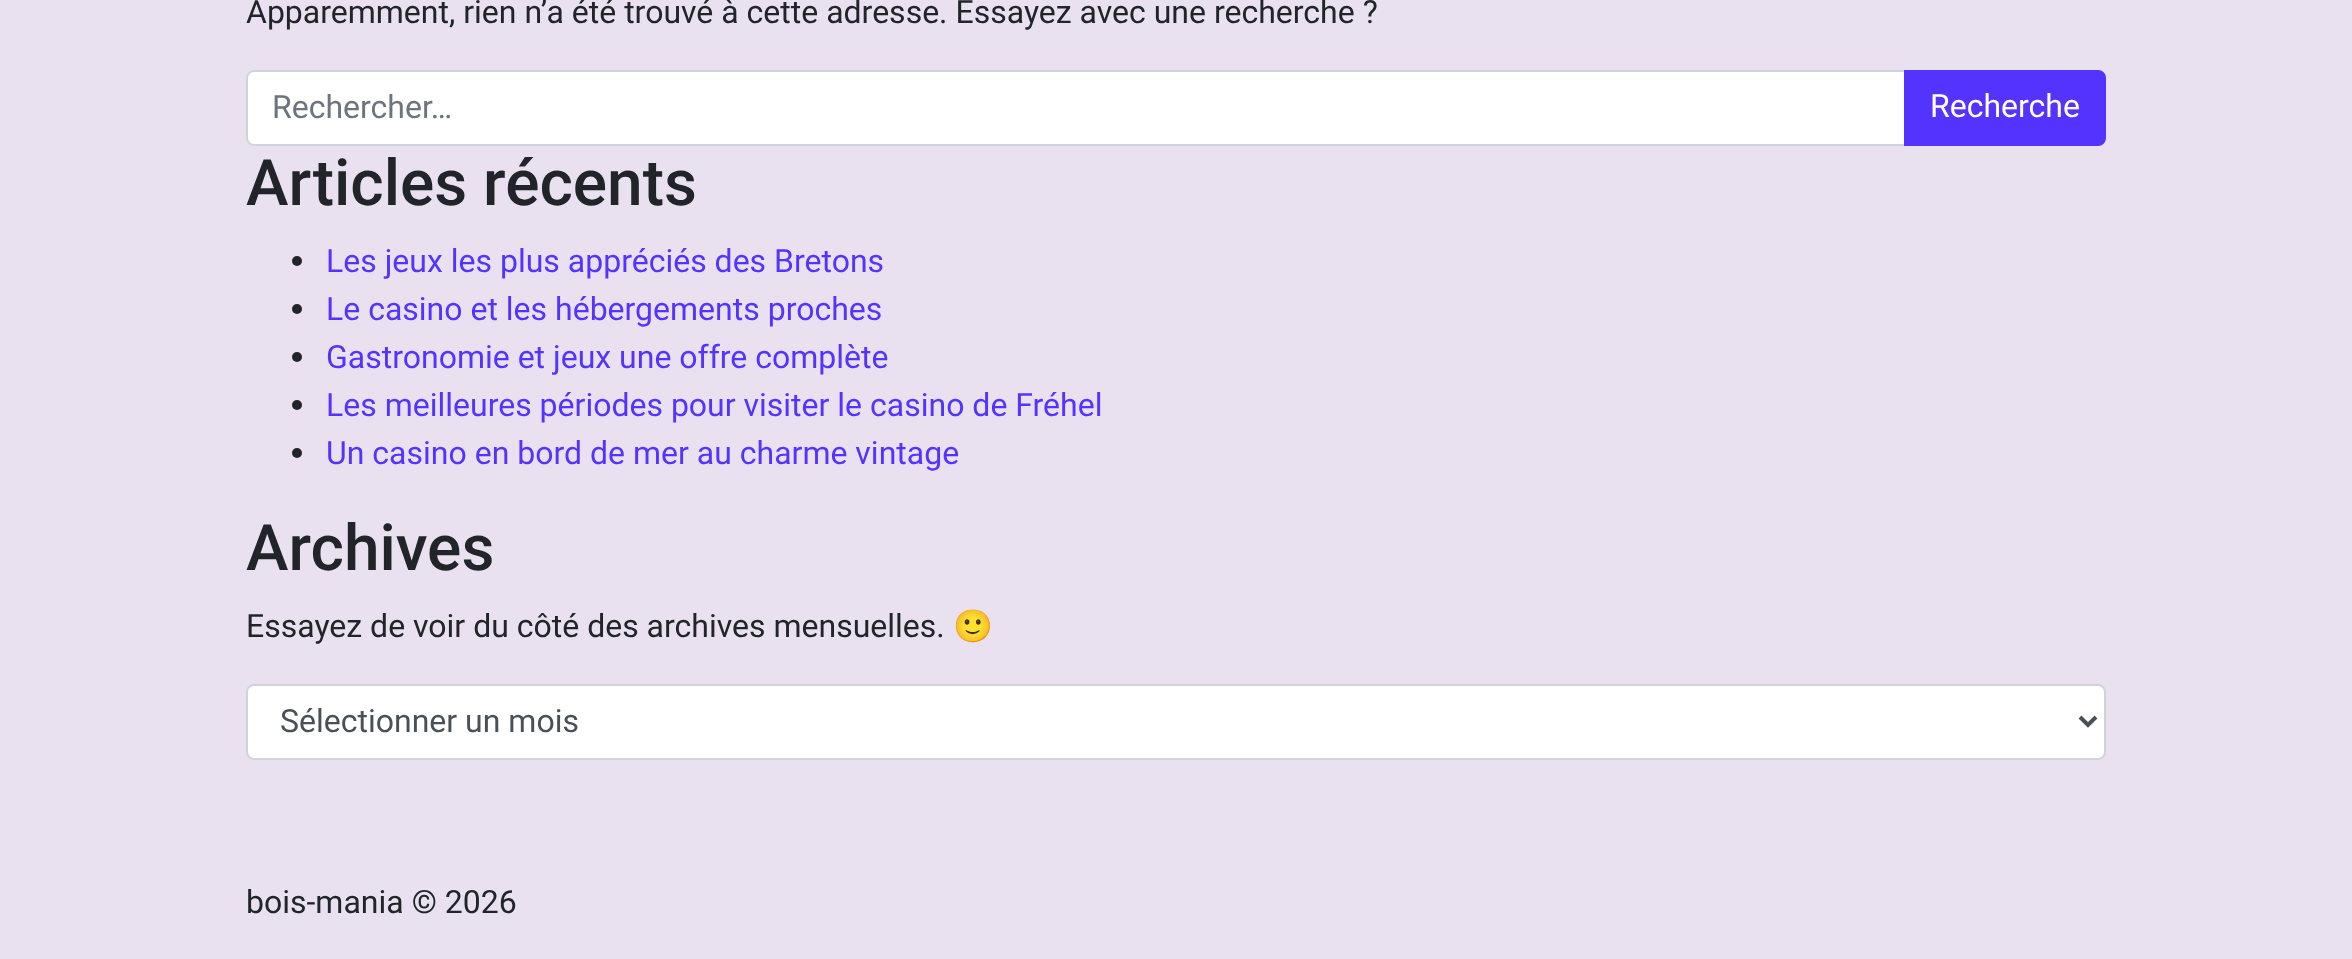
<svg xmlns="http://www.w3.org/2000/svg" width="2352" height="959">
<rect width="100%" height="100%" fill="#e9e1ef"/>
<text x="246" y="23" style="font-family:Roboto;font-size:32px;fill:#212529">Apparemment, rien n’a été trouvé à cette adresse. Essayez avec une recherche ?</text>
<path d="M254 71h1651v74h-1651c-4 0-7-3-7-7v-60c0-4 3-7 7-7z" fill="#fff" stroke="#ced4da" stroke-width="2"/>
<text x="272" y="118" style="font-family:Roboto;font-size:32px;fill:#6c757d">Rechercher…</text>
<path d="M1905 71h193c4 0 7 3 7 7v60c0 4-3 7-7 7h-193z" fill="#53f" stroke="#53f" stroke-width="2"/>
<text x="1930" y="117" style="font-family:Roboto;font-size:32px;fill:#fff">Recherche</text>
<text x="246" y="205" style="font-family:Roboto;font-size:64px;font-weight:500;fill:#212529">Articles récents</text>
<circle cx="297" cy="261" r="5" fill="#212529"/>
<text x="326" y="272" style="font-family:Roboto;font-size:32px;fill:#53f">Les jeux les plus appréciés des Bretons</text>
<circle cx="297" cy="309" r="5" fill="#212529"/>
<text x="326" y="320" style="font-family:Roboto;font-size:32px;fill:#53f">Le casino et les hébergements proches</text>
<circle cx="297" cy="357" r="5" fill="#212529"/>
<text x="326" y="368" style="font-family:Roboto;font-size:32px;fill:#53f">Gastronomie et jeux une offre complète</text>
<circle cx="297" cy="405" r="5" fill="#212529"/>
<text x="326" y="416" style="font-family:Roboto;font-size:32px;fill:#53f">Les meilleures périodes pour visiter le casino de Fréhel</text>
<circle cx="297" cy="453" r="5" fill="#212529"/>
<text x="326" y="464" style="font-family:Roboto;font-size:32px;fill:#53f">Un casino en bord de mer au charme vintage</text>
<text x="246" y="570" style="font-family:Roboto;font-size:64px;font-weight:500;fill:#212529">Archives</text>
<text x="246" y="637" style="font-family:Roboto;font-size:32px;fill:#212529">Essayez de voir du côté des archives mensuelles.</text>
<text x="953" y="637" style="font-family:Noto Color Emoji;font-size:32px;fill:#212529">🙂</text>
<rect x="247" y="685" width="1858" height="74" rx="7" fill="#fff" stroke="#ced4da" stroke-width="2"/>
<path d="M2080 717l8 8l8-8" fill="none" stroke="#495057" stroke-width="4"/>
<text x="280" y="732" style="font-family:Roboto;font-size:32px;fill:#495057">Sélectionner un mois</text>
<text x="246" y="913" style="font-family:Roboto;font-size:32px;fill:#212529">bois-mania © 2026</text>
</svg>
